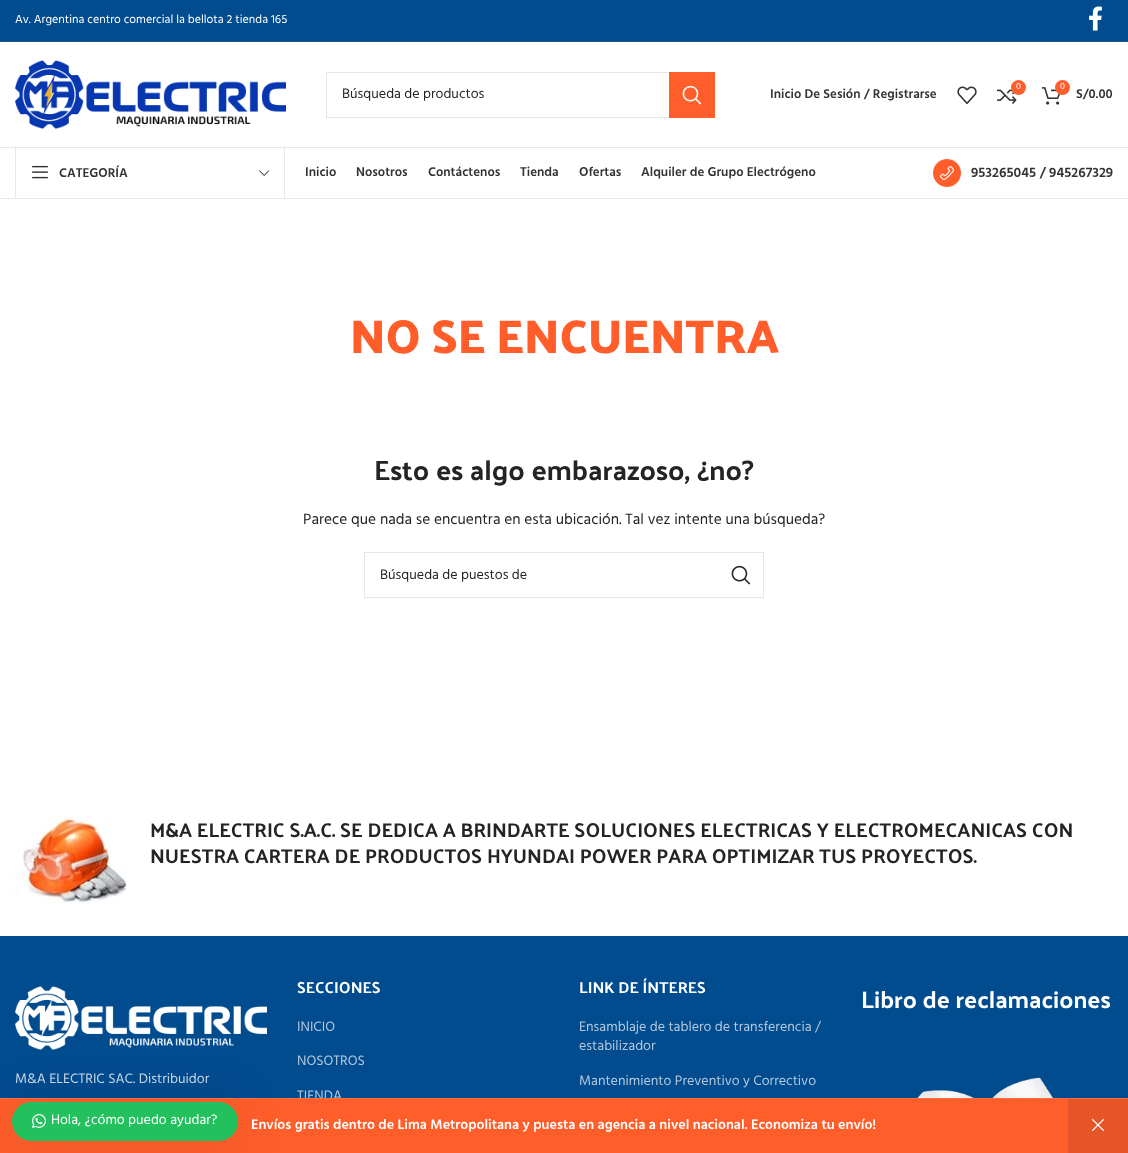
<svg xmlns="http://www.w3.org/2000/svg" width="1128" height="1153">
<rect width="100%" height="100%" fill="#fff"/>
<rect width="1128" height="41" fill="#014b8f"/>
<rect y="41" width="1128" height="1" fill="#1b568a"/>
<text x="15" y="23" style="font-family:Hind;font-size:12px;fill:#fff">Av. Argentina centro comercial la bellota 2 tienda 165</text>
<image x="1089" y="6" width="13" height="25" href="media/1.png"/>
<rect y="147" width="1128" height="1" fill="#e8e8e8"/>
<image x="15" y="60" width="271" height="69" href="media/2.png"/>
<rect x="326.5" y="72.5" width="388" height="45" fill="none" stroke="#e6e6e6"/>
<text x="342" y="98" style="font-family:Hind;font-size:14px;fill:#242424">Búsqueda de productos</text>
<rect x="669" y="72" width="46" height="46" fill="#ff5e2b"/>
<image x="682" y="85" width="20" height="20" href="media/3.png"/>
<text x="770" y="98" style="font-family:Hind;font-size:13px;font-weight:600;fill:#333">Inicio De Sesión / Registrarse</text>
<image x="957" y="86" width="20" height="18" href="media/4.png"/>
<image x="997" y="89" width="20" height="15" href="media/5.png"/>
<circle cx="1018.5" cy="87.5" r="7.5" fill="#ff5e2b"/>
<text x="1016" y="89" style="font-family:Hind;font-size:9px;fill:#fff">0</text>
<image x="1042" y="87" width="19" height="18" href="media/6.png"/>
<circle cx="1062.5" cy="87.5" r="7.5" fill="#ff5e2b"/>
<text x="1060" y="89" style="font-family:Hind;font-size:9px;fill:#fff">0</text>
<text x="1076" y="98" style="font-family:Hind;font-size:13px;font-weight:600;fill:#333">S/0.00</text>
<rect y="198" width="1128" height="1" fill="#e8e8e8"/>
<rect x="15.5" y="147.5" width="269" height="51" fill="none" stroke="#e8e8e8"/>
<image x="32" y="165" width="16" height="14" href="media/7.png"/>
<text x="59" y="177" style="font-family:Hind;font-size:13px;font-weight:600;fill:#333">CATEGORÍA</text>
<image x="259" y="170" width="11" height="6" href="media/8.png"/>
<text x="305" y="176" style="font-family:Hind;font-size:13px;font-weight:600;fill:#333">Inicio</text>
<text x="356" y="176" style="font-family:Hind;font-size:13px;font-weight:600;fill:#333">Nosotros</text>
<text x="428" y="176" style="font-family:Hind;font-size:13px;font-weight:600;fill:#333">Contáctenos</text>
<text x="520" y="176" style="font-family:Hind;font-size:13px;font-weight:600;fill:#333">Tienda</text>
<text x="579" y="176" style="font-family:Hind;font-size:13px;font-weight:600;fill:#333">Ofertas</text>
<text x="641" y="176" style="font-family:Hind;font-size:13px;font-weight:600;fill:#333">Alquiler de Grupo Electrógeno</text>
<image x="933" y="159" width="28" height="28" href="media/9.png"/>
<text x="971" y="177" style="font-family:Hind;font-size:14px;font-weight:600;fill:#333">953265045 / 945267329</text>
<text x="350" y="353" style="font-family:Palanquin Dark;font-size:47.4px;font-weight:600;fill:#ff5e2b">NO SE ENCUENTRA</text>
<text x="374" y="480" style="font-family:Palanquin Dark;font-size:28px;fill:#242424">Esto es algo embarazoso, ¿no?</text>
<text x="303" y="524" style="font-family:Hind;font-size:15.4px;fill:#242424">Parece que nada se encuentra en esta ubicación. Tal vez intente una búsqueda?</text>
<rect x="364.5" y="552.5" width="399" height="45" fill="none" stroke="#e6e6e6"/>
<text x="380" y="579" style="font-family:Hind;font-size:14px;fill:#242424">Búsqueda de puestos de</text>
<image x="731" y="565" width="20" height="20" href="media/10.png"/>
<image x="15" y="816" width="112" height="88" href="media/11.png"/>
<text x="150" y="837" style="font-family:Palanquin Dark;font-size:20px;fill:#242424">M&amp;A ELECTRIC S.A.C. SE DEDICA A BRINDARTE SOLUCIONES ELECTRICAS Y ELECTROMECANICAS CON</text>
<text x="150" y="863" style="font-family:Palanquin Dark;font-size:20px;fill:#242424">NUESTRA CARTERA DE PRODUCTOS HYUNDAI POWER PARA OPTIMIZAR TUS PROYECTOS.</text>
<rect y="936" width="1128" height="162" fill="#014b8f"/>
<text x="297" y="993" style="font-family:Palanquin Dark;font-size:16px;fill:#fff">SECCIONES</text>
<text x="297" y="1031" style="font-family:Hind;font-size:14px;fill:#b3c9dd">INICIO</text>
<text x="297" y="1065" style="font-family:Hind;font-size:14px;fill:#b3c9dd">NOSOTROS</text>
<text x="297" y="1100" style="font-family:Hind;font-size:14px;fill:#b3c9dd">TIENDA</text>
<text x="579" y="993" style="font-family:Palanquin Dark;font-size:16px;fill:#fff">LINK DE ÍNTERES</text>
<text x="579" y="1031" style="font-family:Hind;font-size:14px;fill:#b3c9dd">Ensamblaje de tablero de transferencia /</text>
<text x="579" y="1050" style="font-family:Hind;font-size:14px;fill:#b3c9dd">estabilizador</text>
<text x="579" y="1085" style="font-family:Hind;font-size:14px;fill:#b3c9dd">Mantenimiento Preventivo y Correctivo</text>
<text x="861" y="1008" style="font-family:Palanquin Dark;font-size:24px;fill:#fff">Libro de reclamaciones</text>
<image x="917" y="1077" width="136" height="21" href="media/12.png"/>
<image x="15" y="986" width="252" height="64" href="media/13.png"/>
<text x="15" y="1083" style="font-family:Hind;font-size:14px;fill:#ccdbe9">M&amp;A ELECTRIC SAC. Distribuidor</text>
<rect y="1099" width="1068" height="54" fill="#ff5e2b"/>
<rect y="1098" width="1128" height="1" fill="#ff6e40"/>
<rect x="12" y="1102" width="226" height="39" rx="19.5" fill="#0000001a" filter="blur(25px)"/>
<rect x="12" y="1102" width="226" height="39" rx="19.5" fill="#22c15e"/>
<image x="32" y="1114" width="14" height="14" href="media/14.png"/>
<text x="51" y="1124" style="font-family:Hind;font-size:14px;fill:#fff">Hola, ¿cómo puedo ayudar?</text>
<text x="251" y="1129" style="font-family:Hind;font-size:14px;font-weight:600;fill:#fff">Envíos gratis dentro de Lima Metropolitana y puesta en agencia a nivel nacional. Economiza tu envío!</text>
<rect x="1068" y="1099" width="60" height="54" fill="#e65527"/>
<image x="1091" y="1118" width="14" height="14" href="media/15.png"/>
</svg>
